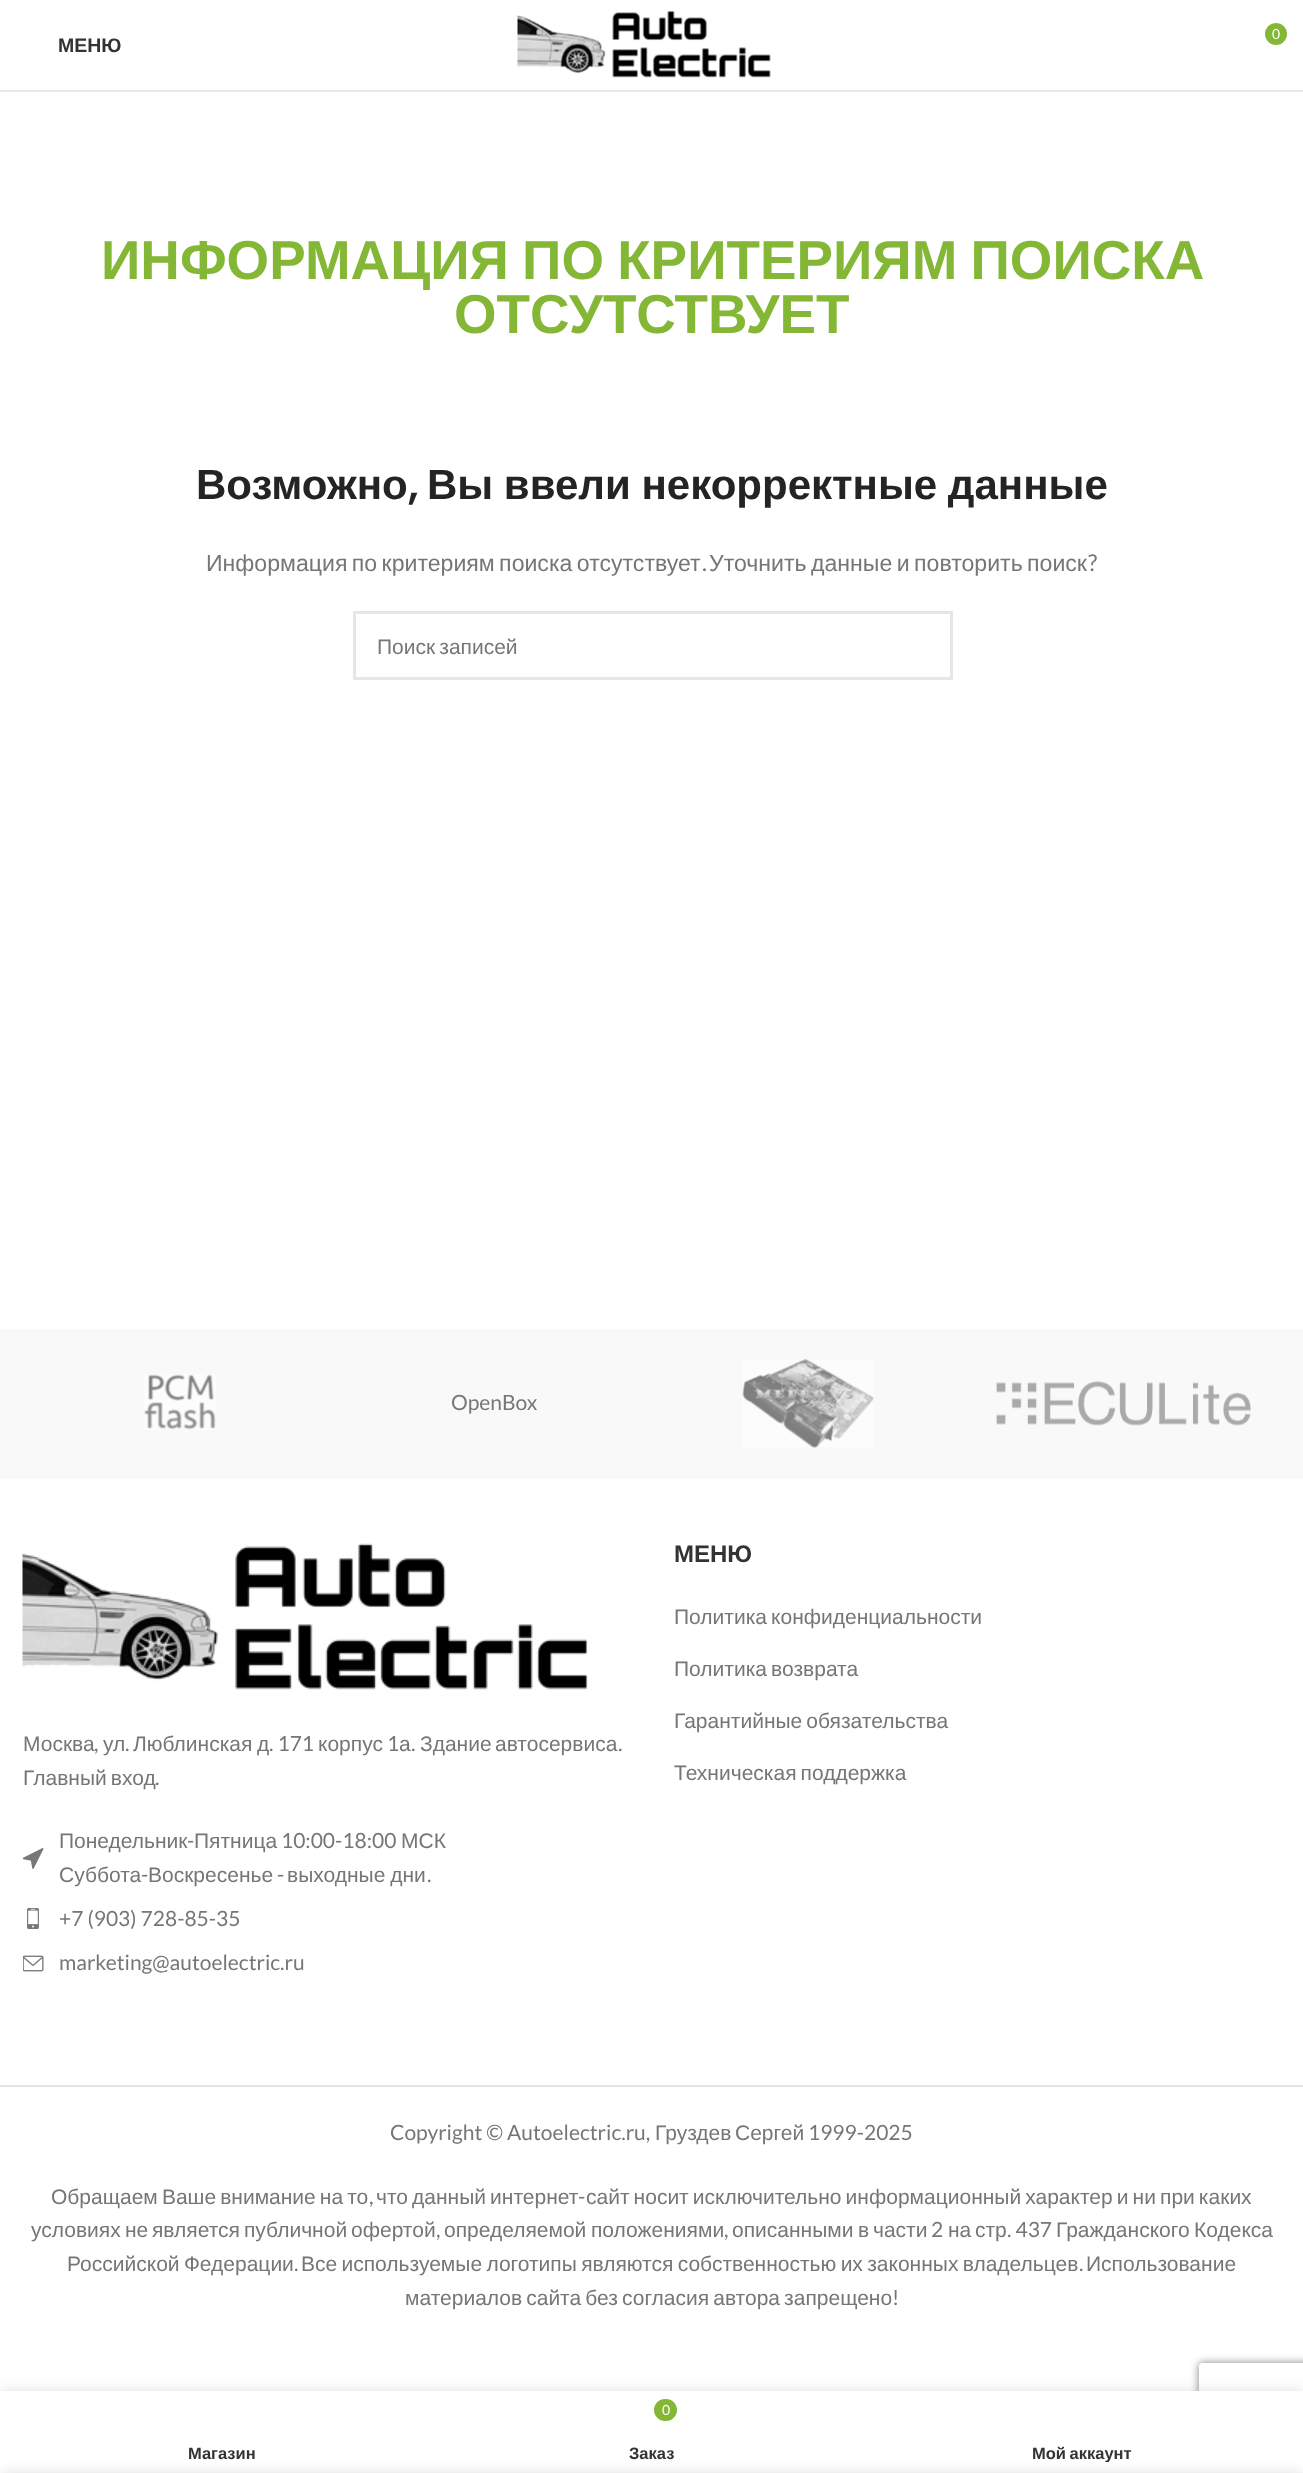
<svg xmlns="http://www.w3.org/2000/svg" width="1303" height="2473">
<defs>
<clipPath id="clip1"><path d="M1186 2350h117v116h-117zm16 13h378c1.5 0 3 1.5 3 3v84c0 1.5-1.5 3-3 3h-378c-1.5 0-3-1.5-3-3v-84c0-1.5 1.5-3 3-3z" clip-rule="evenodd"/></clipPath>
<clipPath id="clip2"><rect x="882" y="2442" width="399" height="20"/></clipPath>
</defs>
<rect width="100%" height="100%" fill="#fff"/>
<rect y="90" width="1303" height="2" fill="#e8e8e8"/>
<image x="517" y="10" width="254" height="68" href="media/1.png"/>
<circle cx="1276" cy="34" r="11" fill="#83b735"/>
<text x="1272" y="39" style="font-family:Lato;font-size:14px;fill:#fff">0</text>
<text x="58" y="52" style="font-family:Liberation Sans;font-size:19.5px;font-weight:bold;fill:#333">МЕНЮ</text>
<text x="101" y="279" word-spacing="-2" style="font-family:Liberation Sans;font-size:54.75px;font-weight:bold;fill:#83b735">ИНФОРМАЦИЯ ПО КРИТЕРИЯМ ПОИСКА</text>
<text x="454" y="333" style="font-family:Liberation Sans;font-size:54.75px;font-weight:bold;fill:#83b735">ОТСУТСТВУЕТ</text>
<text x="196" y="499" style="font-family:Liberation Sans;font-size:42px;font-weight:bold;fill:#242424">Возможно</text>
<text x="408" y="499" style="font-family:Poppins;font-size:42px;font-weight:600;fill:#242424">,</text>
<text x="427" y="499" word-spacing="-1" style="font-family:Liberation Sans;font-size:42px;font-weight:bold;fill:#242424">Вы ввели некорректные данные</text>
<text x="206" y="571" word-spacing="-2" style="font-family:Liberation Sans;font-size:23.1px;fill:#767676">Информация по критериям поиска отсутствует</text>
<text x="702" y="571" style="font-family:Lato;font-size:23.1px;fill:#767676">.</text>
<text x="709" y="571" word-spacing="-2" style="font-family:Liberation Sans;font-size:23.1px;fill:#767676">Уточнить данные и повторить поиск</text>
<text x="1088" y="571" style="font-family:Lato;font-size:23.1px;fill:#767676">?</text>
<rect x="354.5" y="612.5" width="597" height="66" fill="none" stroke="#e6e6e6" stroke-width="3"/>
<text x="377" y="654" word-spacing="-1.75" style="font-family:Liberation Sans;font-size:21px;fill:#767676">Поиск записей</text>
<rect y="1329" width="1303" height="150" fill="#f9f9f9"/>
<image x="144" y="1374" width="72" height="56" href="media/2.png"/>
<text x="451" y="1410" style="font-family:Lato;font-size:21px;fill:#767676">OpenBox</text>
<image x="742" y="1359" width="132" height="89" href="media/3.png"/>
<image x="996" y="1381" width="255" height="45" href="media/4.png"/>
<text x="674" y="1562" style="font-family:Liberation Sans;font-size:24px;font-weight:bold;fill:#333">МЕНЮ</text>
<text x="674" y="1624" word-spacing="-1.75" style="font-family:Liberation Sans;font-size:21px;fill:#767676">Политика конфиденциальности</text>
<text x="674" y="1676" word-spacing="-1.75" style="font-family:Liberation Sans;font-size:21px;fill:#767676">Политика возврата</text>
<text x="674" y="1728" word-spacing="-1.75" style="font-family:Liberation Sans;font-size:21px;fill:#767676">Гарантийные обязательства</text>
<text x="674" y="1780" word-spacing="-1.75" style="font-family:Liberation Sans;font-size:21px;fill:#767676">Техническая поддержка</text>
<image x="22" y="1543" width="566" height="147" href="media/5.png"/>
<text x="23" y="1751" style="font-family:Liberation Sans;font-size:21px;fill:#767676">Москва</text>
<text x="94" y="1751" style="font-family:Lato;font-size:21px;fill:#767676">,</text>
<text x="103" y="1751" style="font-family:Liberation Sans;font-size:21px;fill:#767676">ул</text>
<text x="125" y="1751" style="font-family:Lato;font-size:21px;fill:#767676">.</text>
<text x="133" y="1751" style="font-family:Liberation Sans;font-size:21px;fill:#767676">Люблинская</text>
<text x="257" y="1751" style="font-family:Liberation Sans;font-size:21px;fill:#767676">д</text>
<text x="269" y="1751" style="font-family:Lato;font-size:21px;fill:#767676">. 171</text>
<text x="318" y="1751" style="font-family:Liberation Sans;font-size:21px;fill:#767676">корпус</text>
<text x="387" y="1751" style="font-family:Lato;font-size:21px;fill:#767676">1</text>
<text x="399" y="1751" style="font-family:Liberation Sans;font-size:21px;fill:#767676">а</text>
<text x="411" y="1751" style="font-family:Lato;font-size:21px;fill:#767676">.</text>
<text x="420" y="1751" style="font-family:Liberation Sans;font-size:21px;fill:#767676">Здание</text>
<text x="495" y="1751" style="font-family:Liberation Sans;font-size:21px;fill:#767676">автосервиса</text>
<text x="618" y="1751" style="font-family:Lato;font-size:21px;fill:#767676">.</text>
<text x="23" y="1785" word-spacing="-1.75" style="font-family:Liberation Sans;font-size:21px;fill:#767676">Главный вход</text>
<text x="155" y="1785" style="font-family:Lato;font-size:21px;fill:#767676">.</text>
<image x="23" y="1848" width="21" height="21" href="media/6.png"/>
<text x="59" y="1848" style="font-family:Liberation Sans;font-size:21px;fill:#767676">Понедельник</text>
<text x="187" y="1848" style="font-family:Lato;font-size:21px;fill:#767676">-</text>
<text x="194" y="1848" style="font-family:Liberation Sans;font-size:21px;fill:#767676">Пятница</text>
<text x="281" y="1848" style="font-family:Lato;font-size:21px;fill:#767676">10:00-18:00</text>
<text x="401" y="1848" style="font-family:Liberation Sans;font-size:21px;fill:#767676">МСК</text>
<text x="59" y="1882" style="font-family:Liberation Sans;font-size:21px;fill:#767676">Суббота</text>
<text x="141" y="1882" style="font-family:Lato;font-size:21px;fill:#767676">-</text>
<text x="148" y="1882" style="font-family:Liberation Sans;font-size:21px;fill:#767676">Воскресенье</text>
<text x="277" y="1882" style="font-family:Lato;font-size:21px;fill:#767676">-</text>
<text x="287" y="1882" word-spacing="-1" style="font-family:Liberation Sans;font-size:21px;fill:#767676">выходные дни</text>
<text x="427" y="1882" style="font-family:Lato;font-size:21px;fill:#767676">.</text>
<image x="27" y="1908" width="12" height="21" href="media/7.png"/>
<text x="59" y="1926" style="font-family:Lato;font-size:21px;fill:#767676">+7 (903) 728-85-35</text>
<image x="23" y="1955" width="21" height="17" href="media/8.png"/>
<text x="59" y="1970" style="font-family:Lato;font-size:21px;fill:#767676">marketing@autoelectric.ru</text>
<rect y="2085" width="1303" height="2" fill="#e4e4e4"/>
<text x="390" y="2140" style="font-family:Lato;font-size:21px;fill:#767676">Copyright © Autoelectric.ru,</text>
<text x="655" y="2140" style="font-family:Liberation Sans;font-size:21px;fill:#767676">Груздев</text>
<text x="735" y="2140" style="font-family:Liberation Sans;font-size:21px;fill:#767676">Сергей</text>
<text x="808" y="2140" style="font-family:Lato;font-size:21px;fill:#767676">1999-2025</text>
<text x="51" y="2204" word-spacing="-1.75" style="font-family:Liberation Sans;font-size:21px;fill:#767676">Обращаем Ваше внимание на то</text>
<text x="376" y="2204" word-spacing="-1.75" style="font-family:Liberation Sans;font-size:21px;fill:#767676">что данный интернет</text>
<text x="578" y="2204" style="font-family:Lato;font-size:21px;fill:#767676">-</text>
<text x="586" y="2204" word-spacing="-1.75" style="font-family:Liberation Sans;font-size:21px;fill:#767676">сайт носит исключительно информационный характер и ни при каких</text>
<text x="369" y="2204" style="font-family:Lato;font-size:21px;fill:#767676">,</text>
<text x="31" y="2237" style="font-family:Liberation Sans;font-size:21px;fill:#767676">условиях</text>
<text x="125" y="2237" style="font-family:Liberation Sans;font-size:21px;fill:#767676">не</text>
<text x="152" y="2237" style="font-family:Liberation Sans;font-size:21px;fill:#767676">является</text>
<text x="244" y="2237" style="font-family:Liberation Sans;font-size:21px;fill:#767676">публичной</text>
<text x="351" y="2237" style="font-family:Liberation Sans;font-size:21px;fill:#767676">офертой</text>
<text x="436" y="2237" style="font-family:Lato;font-size:21px;fill:#767676">,</text>
<text x="444" y="2237" style="font-family:Liberation Sans;font-size:21px;fill:#767676">определяемой</text>
<text x="591" y="2237" style="font-family:Liberation Sans;font-size:21px;fill:#767676">положениями</text>
<text x="724" y="2237" style="font-family:Lato;font-size:21px;fill:#767676">,</text>
<text x="732" y="2237" style="font-family:Liberation Sans;font-size:21px;fill:#767676">описанными</text>
<text x="858" y="2237" style="font-family:Liberation Sans;font-size:21px;fill:#767676">в</text>
<text x="873" y="2237" style="font-family:Liberation Sans;font-size:21px;fill:#767676">части</text>
<text x="931" y="2237" style="font-family:Lato;font-size:21px;fill:#767676">2</text>
<text x="948" y="2237" style="font-family:Liberation Sans;font-size:21px;fill:#767676">на</text>
<text x="975" y="2237" style="font-family:Liberation Sans;font-size:21px;fill:#767676">стр</text>
<text x="1007" y="2237" style="font-family:Lato;font-size:21px;fill:#767676">. 437</text>
<text x="1056" y="2237" style="font-family:Liberation Sans;font-size:21px;fill:#767676">Гражданского</text>
<text x="1194" y="2237" style="font-family:Liberation Sans;font-size:21px;fill:#767676">Кодекса</text>
<text x="67" y="2271" word-spacing="-1.5" style="font-family:Liberation Sans;font-size:21px;fill:#767676">Российской Федерации</text>
<text x="294" y="2271" style="font-family:Lato;font-size:21px;fill:#767676">.</text>
<text x="301" y="2271" word-spacing="-1.5" style="font-family:Liberation Sans;font-size:21px;fill:#767676">Все используемые логотипы являются собственностью их законных владельцев</text>
<text x="1079" y="2271" style="font-family:Lato;font-size:21px;fill:#767676">.</text>
<text x="1086" y="2271" style="font-family:Liberation Sans;font-size:21px;fill:#767676">Использование</text>
<text x="405" y="2305" word-spacing="-1.75" style="font-family:Liberation Sans;font-size:21px;fill:#767676">материалов сайта без согласия автора запрещено</text>
<text x="892" y="2305" style="font-family:Lato;font-size:21px;fill:#767676">!</text>
<rect y="2391" width="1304" height="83" fill="#0000001f" filter="blur(7px)"/>
<g clip-path="url(#clip1)">
<rect x="1199" y="2363" width="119" height="90" rx="3" fill="#808080" filter="blur(4px)"/>
</g>
<rect y="2391" width="1303" height="82" fill="#fff"/>
<text x="188" y="2459" style="font-family:Liberation Sans;font-size:16.5px;font-weight:bold;fill:#333">Магазин</text>
<rect x="654" y="2399" width="23" height="22" rx="11" fill="#83b735"/>
<text x="662" y="2415" style="font-family:Lato;font-size:14px;fill:#fff">0</text>
<text x="629" y="2459" style="font-family:Liberation Sans;font-size:16.5px;font-weight:bold;fill:#333">Заказ</text>
<g clip-path="url(#clip2)">
<text x="1032" y="2459" word-spacing="-1" style="font-family:Liberation Sans;font-size:16.5px;font-weight:bold;fill:#333">Мой аккаунт</text>
</g>
<rect y="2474" width="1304" height="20" fill="#00000024" filter="blur(7px)"/>
</svg>
